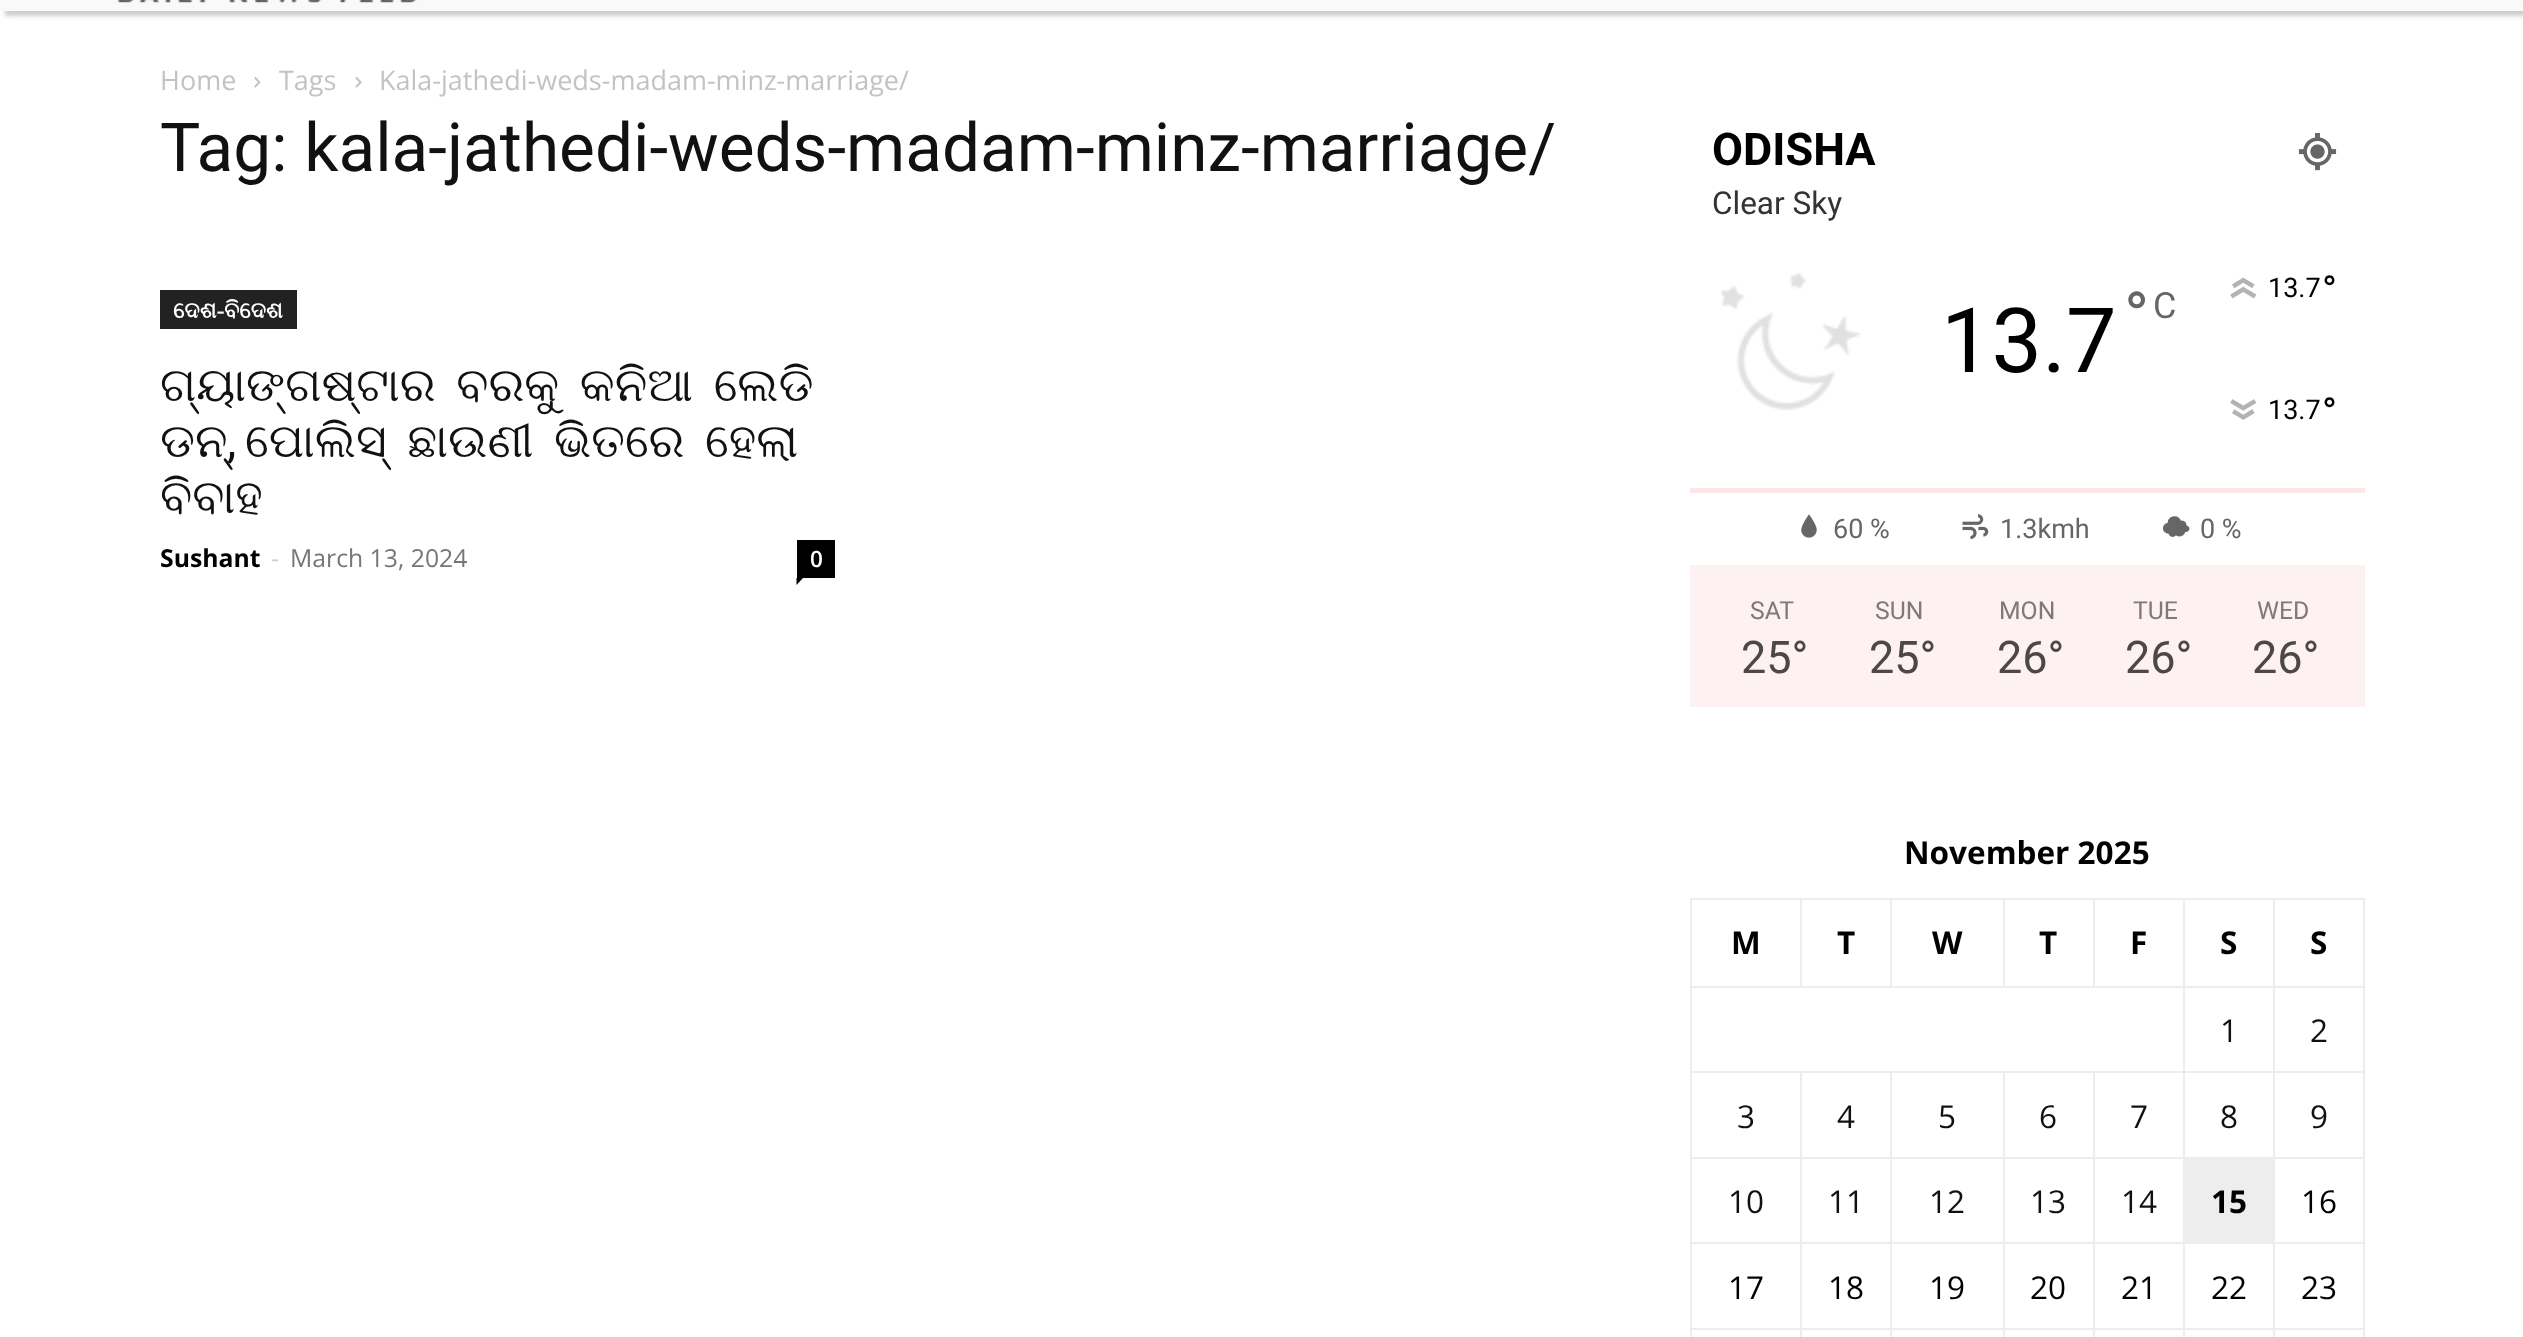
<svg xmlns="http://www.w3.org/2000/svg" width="2523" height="1337">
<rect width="100%" height="100%" fill="#fff"/>
<rect x="5" y="-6" width="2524" height="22" fill="#5454544a" filter="blur(2px)"/>
<rect width="2523" height="11" fill="#f9f9f9"/>
<image x="117" y="0" width="300" height="3" href="media/1.png"/>
<text x="160" y="90" style="font-family:Open Sans;font-size:27px;fill:#c3c3c3">Home</text>
<image x="254" y="77" width="7" height="11" href="media/2.png"/>
<text x="279" y="90" style="font-family:Open Sans;font-size:27px;fill:#c3c3c3">Tags</text>
<image x="355" y="77" width="7" height="11" href="media/3.png"/>
<text x="379" y="90" style="font-family:Open Sans;font-size:27px;fill:#c3c3c3">Kala-jathedi-weds-madam-minz-marriage/</text>
<text x="160" y="171" style="font-family:Roboto;font-size:67.5px;fill:#111">Tag: kala-jathedi-weds-madam-minz-marriage/</text>
<rect x="160" y="290" width="137" height="39" fill="#222"/>
<text x="173" y="318" style="font-family:FreeSerif;font-size:22.5px;font-weight:bold;fill:#fff">ଦେଶ-ବିଦେଶ</text>
<text x="160" y="401" word-spacing="-3" style="font-family:FreeSerif;font-size:47.25px;fill:#111">ଗ୍ୟାଙ୍ଗଷ୍ଟାର ବରକୁ କନିଆ ଲେଡି</text>
<text x="160" y="457" style="font-family:FreeSerif;font-size:47.25px;fill:#111">ଡନ୍</text>
<text x="227" y="457" style="font-family:Roboto;font-size:47.25px;fill:#111">,</text>
<text x="245" y="457" word-spacing="-3" style="font-family:FreeSerif;font-size:47.25px;fill:#111">ପୋଲିସ୍ ଛାଉଣୀ ଭିତରେ ହେଲା</text>
<text x="160" y="513" style="font-family:FreeSerif;font-size:47.25px;fill:#111">ବିବାହ</text>
<text x="160" y="567" style="font-family:Open Sans;font-size:24.75px;font-weight:bold;fill:#000">Sushant</text>
<text x="271" y="567" style="font-family:Open Sans;font-size:24.75px;fill:#ccc">-</text>
<text x="290" y="567" style="font-family:Open Sans;font-size:24.75px;fill:#767676">March 13, 2024</text>
<rect x="797" y="540" width="38" height="38" fill="#000"/>
<text x="810" y="567" style="font-family:Open Sans;font-size:22.5px;font-weight:600;fill:#fff">0</text>
<path d="M796.5 578h6.5l-6.5 7z" fill="#000"/>
<text x="1712" y="165" style="font-family:Roboto;font-size:45px;font-weight:bold;fill:#000">ODISHA</text>
<image x="2298" y="133" width="39" height="38" href="media/4.png"/>
<text x="1712" y="214" style="font-family:Roboto;font-size:31.5px;fill:#333">Clear Sky</text>
<image x="1721" y="272" width="140" height="139" href="media/5.png"/>
<text x="1941" y="372" style="font-family:Roboto;font-size:90px;fill:#000">13.7</text>
<text x="2124" y="340" style="font-family:Roboto;font-size:67.5px;fill:#666">°</text>
<text x="2153" y="318" style="font-family:Roboto;font-size:36px;fill:#666">C</text>
<image x="2230" y="277" width="27" height="22" href="media/6.png"/>
<text x="2268" y="297" style="font-family:Roboto;font-size:27px;fill:#000">13.7</text>
<text x="2322" y="304" style="font-family:Roboto;font-size:40px;fill:#000">°</text>
<image x="2230" y="399" width="27" height="21" href="media/7.png"/>
<text x="2268" y="419" style="font-family:Roboto;font-size:27px;fill:#000">13.7</text>
<text x="2322" y="426" style="font-family:Roboto;font-size:40px;fill:#000">°</text>
<rect x="1690" y="488" width="675" height="5" fill="#fbe7e7"/>
<image x="1801" y="514" width="16" height="24" href="media/8.png"/>
<text x="1833" y="538" style="font-family:Roboto;font-size:27px;fill:#666">60 %</text>
<image x="1962" y="514" width="27" height="25" href="media/9.png"/>
<text x="2000" y="538" style="font-family:Roboto;font-size:27px;fill:#666">1.3kmh</text>
<image x="2163" y="516" width="27" height="21" href="media/10.png"/>
<text x="2200" y="538" style="font-family:Roboto;font-size:27px;fill:#666">0 %</text>
<rect x="1690" y="565" width="675" height="142" fill="#fdf1f1"/>
<text x="1750" y="619" style="font-family:Roboto;font-size:24.75px;fill:#7f7979">SAT</text>
<text x="1741" y="673" style="font-family:Roboto;font-size:45px;fill:#4c4848">25°</text>
<text x="1875" y="619" style="font-family:Roboto;font-size:24.75px;fill:#7f7979">SUN</text>
<text x="1869" y="673" style="font-family:Roboto;font-size:45px;fill:#4c4848">25°</text>
<text x="1999" y="619" style="font-family:Roboto;font-size:24.75px;fill:#7f7979">MON</text>
<text x="1997" y="673" style="font-family:Roboto;font-size:45px;fill:#4c4848">26°</text>
<text x="2133" y="619" style="font-family:Roboto;font-size:24.75px;fill:#7f7979">TUE</text>
<text x="2125" y="673" style="font-family:Roboto;font-size:45px;fill:#4c4848">26°</text>
<text x="2257" y="619" style="font-family:Roboto;font-size:24.75px;fill:#7f7979">WED</text>
<text x="2252" y="673" style="font-family:Roboto;font-size:45px;fill:#4c4848">26°</text>
<text x="1904" y="864" style="font-family:Open Sans;font-size:31.5px;font-weight:bold;fill:#000">November 2025</text>
<rect x="2273" y="898" width="92" height="2" fill="#ededed"/>
<rect x="2273" y="986" width="92" height="2" fill="#ededed"/>
<rect x="2273" y="1071" width="92" height="2" fill="#ededed"/>
<rect x="2183" y="1157" width="182" height="2" fill="#ededed"/>
<rect x="2273" y="1071" width="2" height="88" fill="#ededed"/>
<rect x="2183" y="1071" width="92" height="2" fill="#ededed"/>
<rect x="2273" y="986" width="2" height="87" fill="#ededed"/>
<rect x="2183" y="986" width="92" height="2" fill="#ededed"/>
<rect x="2273" y="898" width="2" height="90" fill="#ededed"/>
<rect x="2183" y="898" width="92" height="2" fill="#ededed"/>
<rect x="2273" y="1242" width="92" height="2" fill="#ededed"/>
<rect x="2273" y="1328" width="92" height="2" fill="#ededed"/>
<rect x="2273" y="1328" width="2" height="9" fill="#ededed"/>
<rect x="2183" y="1328" width="92" height="2" fill="#ededed"/>
<rect x="2273" y="1242" width="2" height="88" fill="#ededed"/>
<rect x="2183" y="1242" width="92" height="2" fill="#ededed"/>
<rect x="2183" y="1328" width="2" height="9" fill="#ededed"/>
<rect x="2093" y="1328" width="92" height="2" fill="#ededed"/>
<rect x="2183" y="1242" width="2" height="88" fill="#ededed"/>
<rect x="2093" y="1242" width="92" height="2" fill="#ededed"/>
<rect x="2183" y="1157" width="2" height="87" fill="#ededed"/>
<rect x="2093" y="1157" width="92" height="2" fill="#ededed"/>
<rect x="2183" y="1071" width="2" height="88" fill="#ededed"/>
<rect x="2093" y="1071" width="92" height="2" fill="#ededed"/>
<rect x="2183" y="986" width="2" height="87" fill="#ededed"/>
<rect x="1690" y="986" width="495" height="2" fill="#ededed"/>
<rect x="2183" y="898" width="2" height="90" fill="#ededed"/>
<rect x="2093" y="898" width="92" height="2" fill="#ededed"/>
<rect x="2093" y="898" width="2" height="90" fill="#ededed"/>
<rect x="2003" y="898" width="92" height="2" fill="#ededed"/>
<rect x="2003" y="898" width="2" height="90" fill="#ededed"/>
<rect x="1890" y="898" width="115" height="2" fill="#ededed"/>
<rect x="1890" y="898" width="2" height="90" fill="#ededed"/>
<rect x="1800" y="898" width="92" height="2" fill="#ededed"/>
<rect x="1800" y="898" width="2" height="90" fill="#ededed"/>
<rect x="1690" y="898" width="112" height="2" fill="#ededed"/>
<rect x="2093" y="1328" width="2" height="9" fill="#ededed"/>
<rect x="2003" y="1328" width="92" height="2" fill="#ededed"/>
<rect x="2093" y="1242" width="2" height="88" fill="#ededed"/>
<rect x="2003" y="1242" width="92" height="2" fill="#ededed"/>
<rect x="2093" y="1157" width="2" height="87" fill="#ededed"/>
<rect x="2003" y="1157" width="92" height="2" fill="#ededed"/>
<rect x="2093" y="1071" width="2" height="88" fill="#ededed"/>
<rect x="2003" y="1071" width="92" height="2" fill="#ededed"/>
<rect x="2003" y="1328" width="2" height="9" fill="#ededed"/>
<rect x="1890" y="1328" width="115" height="2" fill="#ededed"/>
<rect x="2003" y="1242" width="2" height="88" fill="#ededed"/>
<rect x="1890" y="1242" width="115" height="2" fill="#ededed"/>
<rect x="2003" y="1157" width="2" height="87" fill="#ededed"/>
<rect x="1890" y="1157" width="115" height="2" fill="#ededed"/>
<rect x="2003" y="1071" width="2" height="88" fill="#ededed"/>
<rect x="1890" y="1071" width="115" height="2" fill="#ededed"/>
<rect x="1890" y="1328" width="2" height="9" fill="#ededed"/>
<rect x="1800" y="1328" width="92" height="2" fill="#ededed"/>
<rect x="1890" y="1242" width="2" height="88" fill="#ededed"/>
<rect x="1800" y="1242" width="92" height="2" fill="#ededed"/>
<rect x="1890" y="1157" width="2" height="87" fill="#ededed"/>
<rect x="1800" y="1157" width="92" height="2" fill="#ededed"/>
<rect x="1890" y="1071" width="2" height="88" fill="#ededed"/>
<rect x="1800" y="1071" width="92" height="2" fill="#ededed"/>
<rect x="1800" y="1328" width="2" height="9" fill="#ededed"/>
<rect x="1690" y="1328" width="112" height="2" fill="#ededed"/>
<rect x="1800" y="1242" width="2" height="88" fill="#ededed"/>
<rect x="1690" y="1242" width="112" height="2" fill="#ededed"/>
<rect x="1800" y="1157" width="2" height="87" fill="#ededed"/>
<rect x="1690" y="1157" width="112" height="2" fill="#ededed"/>
<rect x="1800" y="1071" width="2" height="88" fill="#ededed"/>
<rect x="1690" y="1071" width="112" height="2" fill="#ededed"/>
<rect x="1690" y="1328" width="2" height="9" fill="#ededed"/>
<rect x="1690" y="1242" width="2" height="88" fill="#ededed"/>
<rect x="1690" y="1157" width="2" height="87" fill="#ededed"/>
<rect x="1690" y="1071" width="2" height="88" fill="#ededed"/>
<rect x="1690" y="986" width="2" height="87" fill="#ededed"/>
<rect x="1690" y="898" width="2" height="90" fill="#ededed"/>
<text x="1731" y="954" style="font-family:Open Sans;font-size:31.5px;font-weight:bold;fill:#000">M</text>
<text x="1837" y="954" style="font-family:Open Sans;font-size:31.5px;font-weight:bold;fill:#000">T</text>
<text x="1932" y="954" style="font-family:Open Sans;font-size:31.5px;font-weight:bold;fill:#000">W</text>
<text x="2039" y="954" style="font-family:Open Sans;font-size:31.5px;font-weight:bold;fill:#000">T</text>
<text x="2130" y="954" style="font-family:Open Sans;font-size:31.5px;font-weight:bold;fill:#000">F</text>
<text x="2220" y="954" style="font-family:Open Sans;font-size:31.5px;font-weight:bold;fill:#000">S</text>
<rect x="2363" y="1328" width="2" height="9" fill="#ededed"/>
<rect x="2363" y="1242" width="2" height="88" fill="#ededed"/>
<rect x="2363" y="1157" width="2" height="87" fill="#ededed"/>
<rect x="2363" y="1071" width="2" height="88" fill="#ededed"/>
<rect x="2363" y="986" width="2" height="87" fill="#ededed"/>
<rect x="2363" y="898" width="2" height="90" fill="#ededed"/>
<text x="2310" y="954" style="font-family:Open Sans;font-size:31.5px;font-weight:bold;fill:#000">S</text>
<text x="2220" y="1042" style="font-family:Open Sans;font-size:31.5px;fill:#111">1</text>
<text x="2310" y="1042" style="font-family:Open Sans;font-size:31.5px;fill:#111">2</text>
<text x="1737" y="1128" style="font-family:Open Sans;font-size:31.5px;fill:#111">3</text>
<text x="1837" y="1128" style="font-family:Open Sans;font-size:31.5px;fill:#111">4</text>
<text x="1938" y="1128" style="font-family:Open Sans;font-size:31.5px;fill:#111">5</text>
<text x="2039" y="1128" style="font-family:Open Sans;font-size:31.5px;fill:#111">6</text>
<text x="2130" y="1128" style="font-family:Open Sans;font-size:31.5px;fill:#111">7</text>
<text x="2220" y="1128" style="font-family:Open Sans;font-size:31.5px;fill:#111">8</text>
<text x="2310" y="1128" style="font-family:Open Sans;font-size:31.5px;fill:#111">9</text>
<text x="1728" y="1213" style="font-family:Open Sans;font-size:31.5px;fill:#111">10</text>
<text x="1828" y="1213" style="font-family:Open Sans;font-size:31.5px;fill:#111">11</text>
<text x="1929" y="1213" style="font-family:Open Sans;font-size:31.5px;fill:#111">12</text>
<text x="2030" y="1213" style="font-family:Open Sans;font-size:31.5px;fill:#111">13</text>
<text x="2121" y="1213" style="font-family:Open Sans;font-size:31.5px;fill:#111">14</text>
<rect x="2185" y="1159" width="90" height="83" fill="#ededed"/>
<text x="2211" y="1213" style="font-family:Open Sans;font-size:31.5px;font-weight:bold;fill:#000">15</text>
<text x="2301" y="1213" style="font-family:Open Sans;font-size:31.5px;fill:#000">16</text>
<text x="1728" y="1299" style="font-family:Open Sans;font-size:31.5px;fill:#000">17</text>
<text x="1828" y="1299" style="font-family:Open Sans;font-size:31.5px;fill:#000">18</text>
<text x="1929" y="1299" style="font-family:Open Sans;font-size:31.5px;fill:#000">19</text>
<text x="2030" y="1299" style="font-family:Open Sans;font-size:31.5px;fill:#000">20</text>
<text x="2121" y="1299" style="font-family:Open Sans;font-size:31.5px;fill:#000">21</text>
<text x="2211" y="1299" style="font-family:Open Sans;font-size:31.5px;fill:#000">22</text>
<text x="2301" y="1299" style="font-family:Open Sans;font-size:31.5px;fill:#000">23</text>
</svg>
